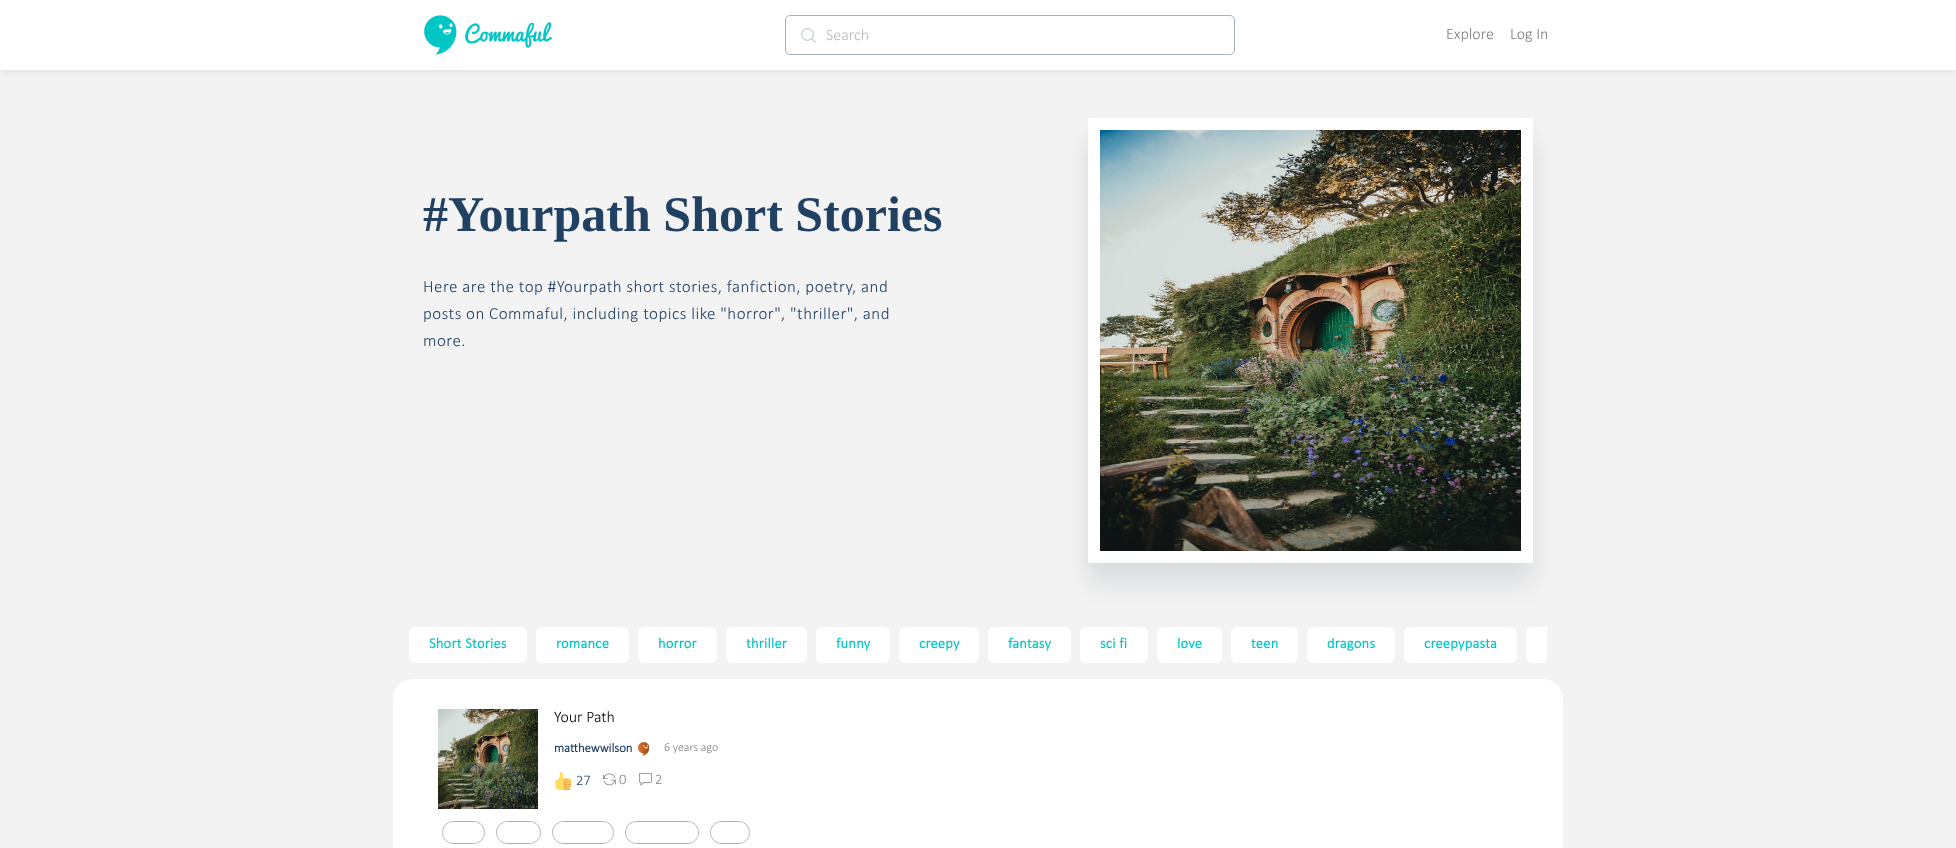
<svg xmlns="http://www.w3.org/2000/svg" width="1956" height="848">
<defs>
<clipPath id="clip1"><rect x="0" y="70" width="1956" height="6"/></clipPath>
</defs>
<rect width="100%" height="100%" fill="#fff"/>
<rect y="70" width="1956" height="778" fill="#f3f3f3"/>
<g clip-path="url(#clip1)">
<rect y="2" width="1956" height="70" fill="#2141631a" filter="blur(5px)"/>
</g>
<image x="424" y="15" width="128" height="40" href="media/1.png"/>
<image x="801" y="28" width="15" height="15" href="media/2.png"/>
<rect x="785.5" y="15.5" width="449" height="39" rx="4.5" fill="#ffffff80" stroke="#a4b1bf"/>
<text x="826" y="40" style="font-family:Calibri;font-size:16px;font-weight:300;fill:#bababa">Search</text>
<text x="1446" y="39" style="font-family:Calibri;font-size:16px;font-weight:300;fill:#808080">Explore</text>
<text x="1510" y="39" style="font-family:Calibri;font-size:16px;font-weight:300;fill:#808080">Log In</text>
<text x="423" y="231" style="font-family:Liberation Serif;font-size:50px;font-weight:bold;fill:#214163">#Yourpath Short Stories</text>
<text x="423" y="292" style="font-family:Calibri;font-size:17px;font-weight:300;letter-spacing:0.5px;fill:#214163">Here are the top #Yourpath short stories, fanfiction, poetry, and</text>
<text x="423" y="319" style="font-family:Calibri;font-size:17px;font-weight:300;letter-spacing:0.5px;fill:#214163">posts on Commaful, including topics like "horror", "thriller", and</text>
<text x="423" y="346" style="font-family:Calibri;font-size:17px;font-weight:300;letter-spacing:0.5px;fill:#214163">more.</text>
<rect x="1088" y="138" width="445" height="445" fill="#000b281a" filter="blur(12px)"/>
<rect x="1094" y="124" width="433" height="433" fill="none" stroke="#fff" stroke-width="12"/>
<image x="1100" y="130" width="421" height="421" href="media/3.png"/>
<rect x="409" y="627" width="118" height="36" rx="6" fill="#fff"/>
<text x="429" y="648" style="font-family:Calibri;font-size:14.5px;font-weight:bold;letter-spacing:0.25px;fill:#00c6c6">Short Stories</text>
<rect x="536" y="627" width="93" height="36" rx="6" fill="#fff"/>
<text x="556" y="648" style="font-family:Calibri;font-size:14.5px;font-weight:bold;letter-spacing:0.25px;fill:#00c6c6">romance</text>
<rect x="638" y="627" width="79" height="36" rx="6" fill="#fff"/>
<text x="658" y="648" style="font-family:Calibri;font-size:14.5px;font-weight:bold;letter-spacing:0.25px;fill:#00c6c6">horror</text>
<rect x="726" y="627" width="81" height="36" rx="6" fill="#fff"/>
<text x="746" y="648" style="font-family:Calibri;font-size:14.5px;font-weight:bold;letter-spacing:0.25px;fill:#00c6c6">thriller</text>
<rect x="816" y="627" width="74" height="36" rx="6" fill="#fff"/>
<text x="836" y="648" style="font-family:Calibri;font-size:14.5px;font-weight:bold;letter-spacing:0.25px;fill:#00c6c6">funny</text>
<rect x="899" y="627" width="80" height="36" rx="6" fill="#fff"/>
<text x="919" y="648" style="font-family:Calibri;font-size:14.5px;font-weight:bold;letter-spacing:0.25px;fill:#00c6c6">creepy</text>
<rect x="988" y="627" width="83" height="36" rx="6" fill="#fff"/>
<text x="1008" y="648" style="font-family:Calibri;font-size:14.5px;font-weight:bold;letter-spacing:0.25px;fill:#00c6c6">fantasy</text>
<rect x="1080" y="627" width="68" height="36" rx="6" fill="#fff"/>
<text x="1100" y="648" style="font-family:Calibri;font-size:14.5px;font-weight:bold;letter-spacing:0.25px;fill:#00c6c6">sci fi</text>
<rect x="1157" y="627" width="65" height="36" rx="6" fill="#fff"/>
<text x="1177" y="648" style="font-family:Calibri;font-size:14.5px;font-weight:bold;letter-spacing:0.25px;fill:#00c6c6">love</text>
<rect x="1231" y="627" width="67" height="36" rx="6" fill="#fff"/>
<text x="1251" y="648" style="font-family:Calibri;font-size:14.5px;font-weight:bold;letter-spacing:0.25px;fill:#00c6c6">teen</text>
<rect x="1307" y="627" width="88" height="36" rx="6" fill="#fff"/>
<text x="1327" y="648" style="font-family:Calibri;font-size:14.5px;font-weight:bold;letter-spacing:0.25px;fill:#00c6c6">dragons</text>
<rect x="1404" y="627" width="113" height="36" rx="6" fill="#fff"/>
<text x="1424" y="648" style="font-family:Calibri;font-size:14.5px;font-weight:bold;letter-spacing:0.25px;fill:#00c6c6">creepypasta</text>
<path d="M1532 627h15v36h-15c-3.5 0-6-2.5-6-6v-24c0-3.5 2.5-6 6-6z" fill="#fff"/>
<rect x="393" y="679" width="1170" height="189" rx="20" fill="#fff"/>
<image x="438" y="709" width="100" height="100" href="media/4.png"/>
<text x="554" y="722" style="font-family:Calibri;font-size:16px;font-weight:300;fill:#000">Your Path</text>
<text x="554" y="752" style="font-family:Calibri;font-size:12.75px;font-weight:bold;fill:#214163">matthewwilson</text>
<image x="638" y="742" width="11" height="14" href="media/5.png"/>
<text x="664" y="751" style="font-family:Calibri;font-size:12px;font-weight:300;fill:#808080">6 years ago</text>
<image x="555" y="772" width="17" height="18" href="media/6.png"/>
<text x="576" y="785" style="font-family:Calibri;font-size:14.5px;font-weight:300;fill:#214163">27</text>
<image x="603" y="773" width="13" height="13" href="media/7.png"/>
<text x="619" y="784" style="font-family:Calibri;font-size:14.5px;font-weight:300;fill:#808080">0</text>
<image x="639" y="773" width="13" height="13" href="media/8.png"/>
<text x="655" y="784" style="font-family:Calibri;font-size:14.5px;font-weight:300;fill:#808080">2</text>
<rect x="442.5" y="821.5" width="42" height="22" rx="11" fill="none" stroke="#adadad"/>
<rect x="443" y="822" width="41" height="21" rx="10.5" fill="#fff"/>
<rect x="496.5" y="821.5" width="44" height="22" rx="11" fill="none" stroke="#adadad"/>
<rect x="497" y="822" width="43" height="21" rx="10.5" fill="#fff"/>
<rect x="552.5" y="821.5" width="61" height="22" rx="11" fill="none" stroke="#adadad"/>
<rect x="553" y="822" width="60" height="21" rx="10.5" fill="#fff"/>
<rect x="625.5" y="821.5" width="73" height="22" rx="11" fill="none" stroke="#adadad"/>
<rect x="626" y="822" width="72" height="21" rx="10.5" fill="#fff"/>
<rect x="710.5" y="821.5" width="39" height="22" rx="11" fill="none" stroke="#adadad"/>
<rect x="711" y="822" width="38" height="21" rx="10.5" fill="#fff"/>
</svg>
